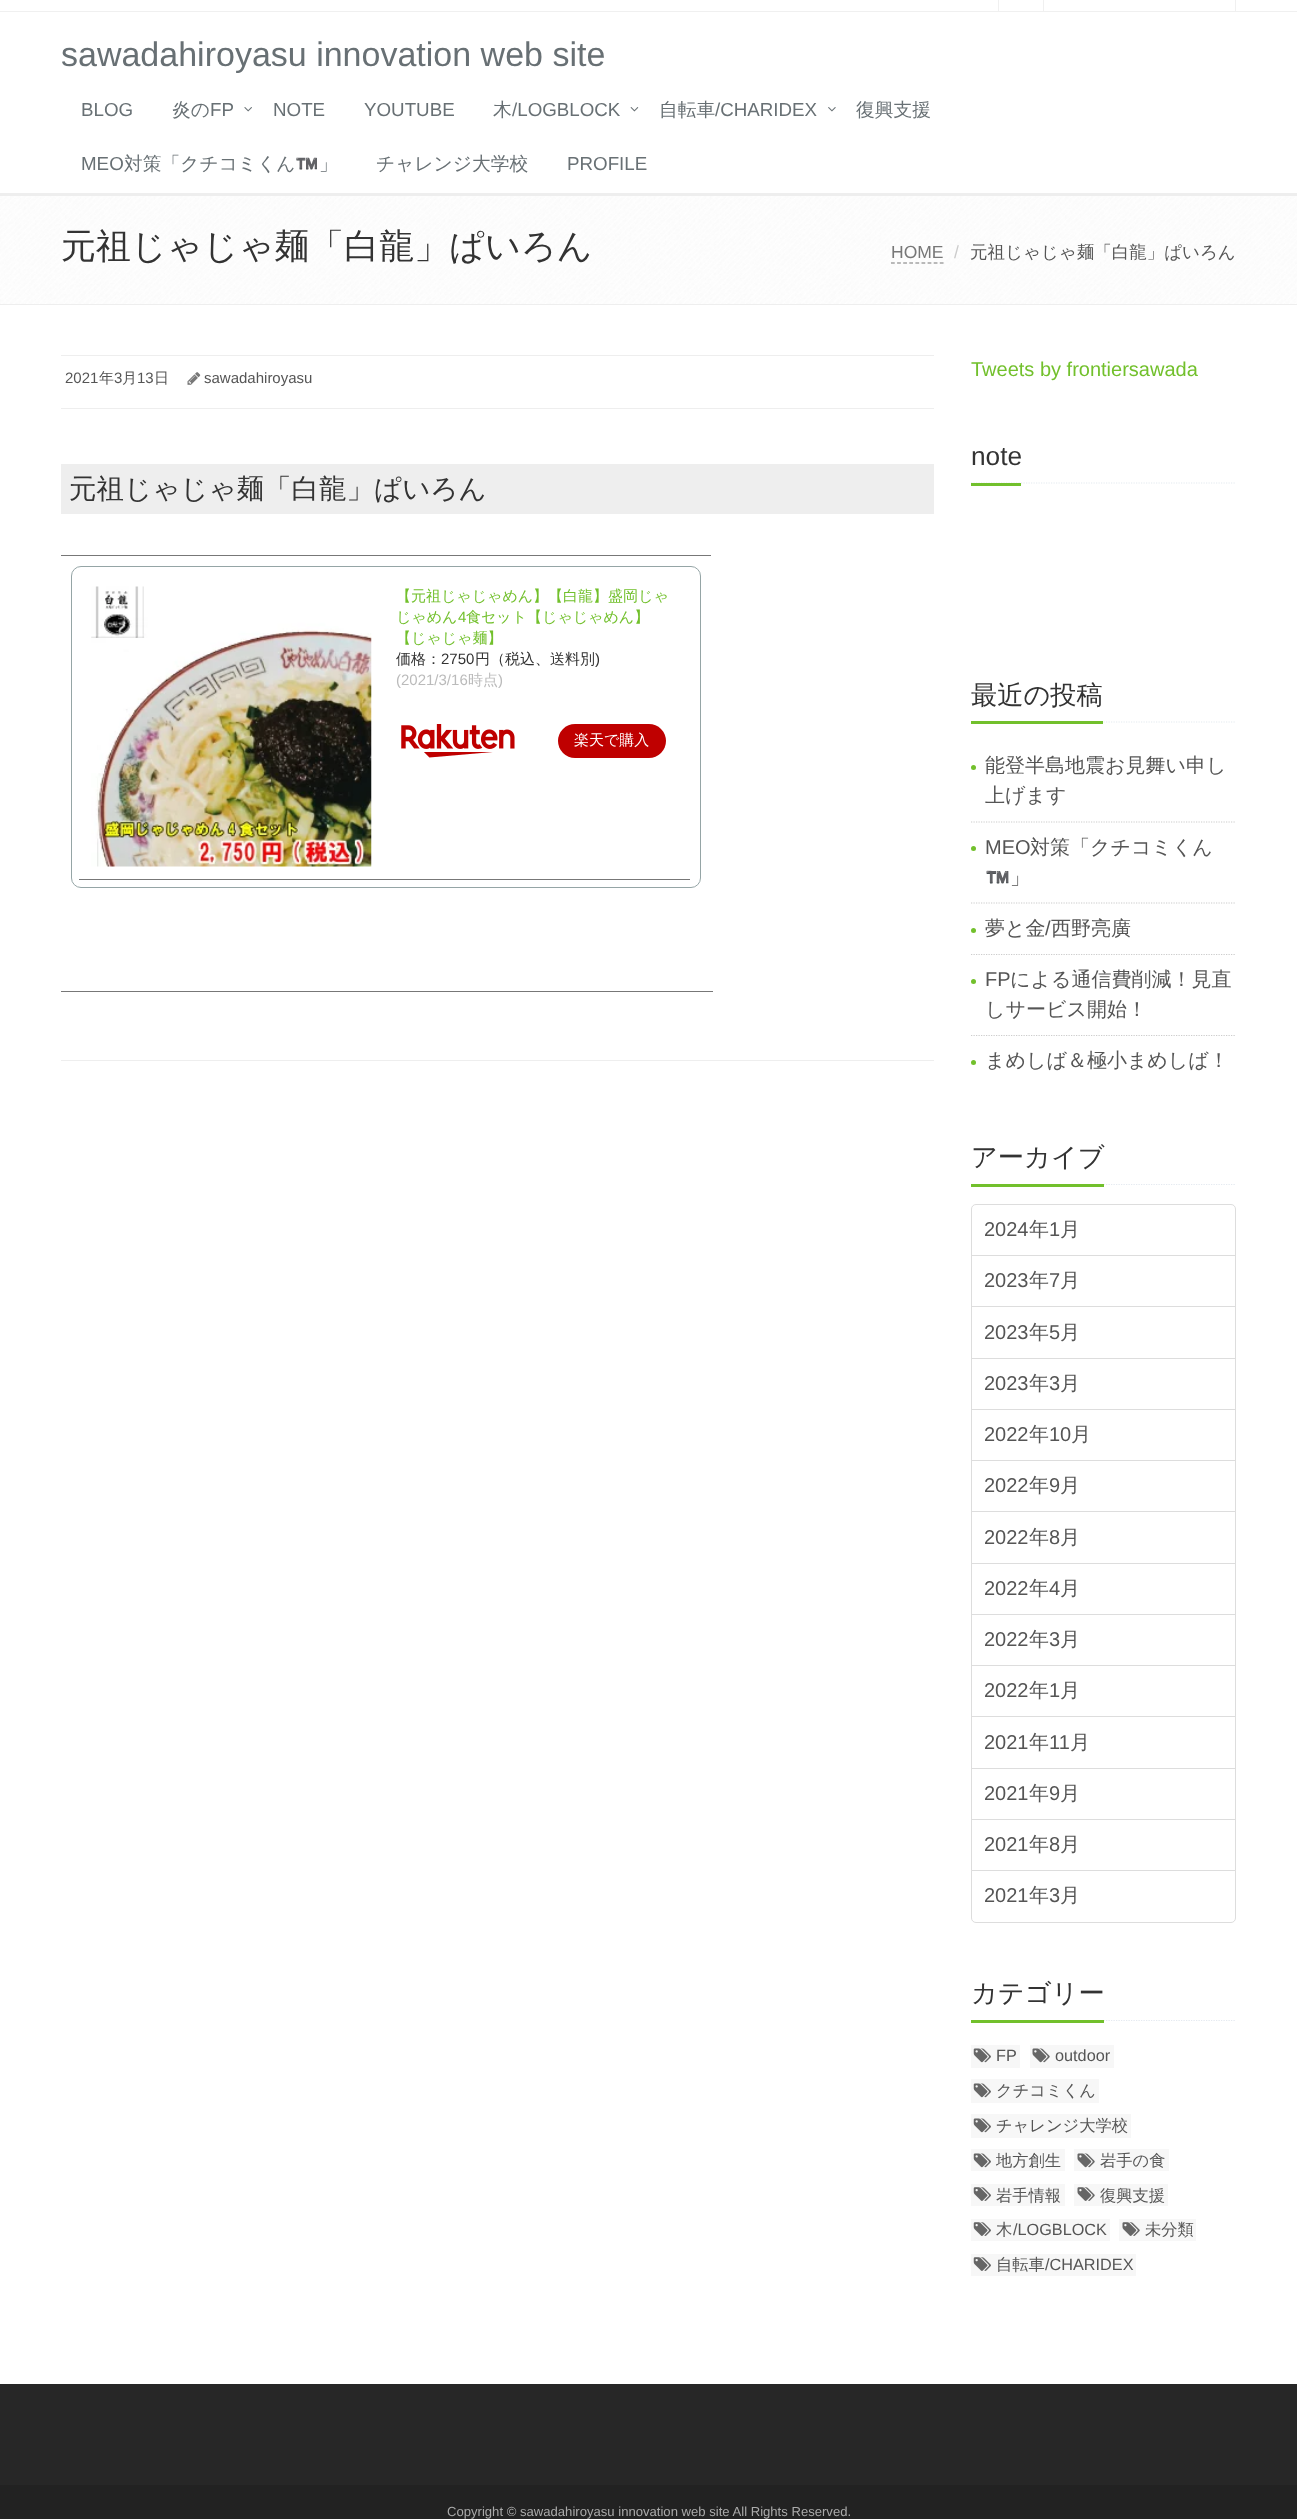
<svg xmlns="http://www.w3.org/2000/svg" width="1297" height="2519">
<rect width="100%" height="100%" fill="#fff"/>
<rect y="193" width="1297" height="3" fill="#eee"/>
<rect y="11" width="1297" height="1" fill="#f0f0f0"/>
<rect x="1235" width="1" height="11" fill="#f0f0f0"/>
<rect x="1043" width="1" height="11" fill="#f0f0f0"/>
<rect x="998" width="1" height="11" fill="#f0f0f0"/>
<text x="61" y="66" style="font-family:Liberation Sans;font-size:34px;fill:#687074">sawadahiroyasu innovation web site</text>
<text x="81" y="116" style="font-family:Liberation Sans;font-size:18.75px;fill:#687074">BLOG</text>
<text x="172" y="116" style="font-family:WenQuanYi Zen Hei;font-size:18.75px;font-weight:500;fill:#687074">炎の</text>
<text x="210" y="116" style="font-family:Liberation Sans;font-size:18.75px;fill:#687074">FP</text>
<image x="244" y="107" width="8" height="5" href="media/1.png"/>
<text x="273" y="116" style="font-family:Liberation Sans;font-size:18.75px;fill:#687074">NOTE</text>
<text x="364" y="116" style="font-family:Liberation Sans;font-size:18.75px;fill:#687074">YOUTUBE</text>
<text x="493" y="116" style="font-family:WenQuanYi Zen Hei;font-size:18.75px;font-weight:500;fill:#687074">木</text>
<text x="512" y="116" style="font-family:Liberation Sans;font-size:18.75px;fill:#687074">/LOGBLOCK</text>
<image x="630" y="107" width="9" height="5" href="media/2.png"/>
<text x="659" y="116" style="font-family:WenQuanYi Zen Hei;font-size:18.75px;font-weight:500;fill:#687074">自転車</text>
<text x="715" y="116" style="font-family:Liberation Sans;font-size:18.75px;fill:#687074">/CHARIDEX</text>
<image x="828" y="107" width="8" height="5" href="media/3.png"/>
<text x="856" y="116" style="font-family:WenQuanYi Zen Hei;font-size:18.75px;font-weight:500;fill:#687074">復興支援</text>
<text x="81" y="170" style="font-family:Liberation Sans;font-size:18.75px;fill:#687074">MEO</text>
<text x="124" y="170" style="font-family:WenQuanYi Zen Hei;font-size:18.75px;font-weight:500;fill:#687074">対策「クチコミくん</text>
<text x="295" y="170" style="font-family:Noto Color Emoji;font-size:18.75px;fill:#687074">™️</text>
<text x="319" y="170" style="font-family:WenQuanYi Zen Hei;font-size:18.75px;font-weight:500;fill:#687074">」</text>
<text x="376" y="170" style="font-family:WenQuanYi Zen Hei;font-size:18.75px;font-weight:500;fill:#687074">チャレンジ大学校</text>
<text x="567" y="170" style="font-family:Liberation Sans;font-size:18.75px;fill:#687074">PROFILE</text>
<image x="0" y="196" width="1297" height="108" href="media/4.png"/>
<rect y="304" width="1297" height="1" fill="#eee"/>
<text x="61" y="258" style="font-family:WenQuanYi Zen Hei;font-size:35px;font-weight:500;fill:#333">元祖じゃじゃ麺「白龍」ぱいろん</text>
<text x="891" y="258" style="font-family:Liberation Sans;font-size:17.5px;fill:#777">HOME</text>
<path d="M891 263h53" fill="none" stroke="#777" stroke-width="1.2" stroke-dasharray="3.75 2.35"/>
<text x="954" y="258" style="font-family:Liberation Sans;font-size:17.5px;fill:#ccc">/</text>
<text x="970" y="258" style="font-family:WenQuanYi Zen Hei;font-size:17.5px;font-weight:500;fill:#555">元祖じゃじゃ麺「白龍」ぱいろん</text>
<rect x="61" y="355" width="873" height="1" fill="#eee"/>
<rect x="61" y="408" width="873" height="1" fill="#eee"/>
<text x="65" y="383" style="font-family:Liberation Sans;font-size:15px;fill:#555">2021</text>
<text x="99" y="383" style="font-family:WenQuanYi Zen Hei;font-size:15px;font-weight:500;fill:#555">年</text>
<text x="114" y="383" style="font-family:Liberation Sans;font-size:15px;fill:#555">3</text>
<text x="122" y="383" style="font-family:WenQuanYi Zen Hei;font-size:15px;font-weight:500;fill:#555">月</text>
<text x="137" y="383" style="font-family:Liberation Sans;font-size:15px;fill:#555">13</text>
<text x="154" y="383" style="font-family:WenQuanYi Zen Hei;font-size:15px;font-weight:500;fill:#555">日</text>
<image x="187" y="372" width="14" height="13" href="media/5.png"/>
<text x="204" y="383" style="font-family:Liberation Sans;font-size:15px;fill:#555">sawadahiroyasu</text>
<rect x="61" y="464" width="873" height="50" fill="#eee"/>
<text x="69" y="498" style="font-family:WenQuanYi Zen Hei;font-size:27.5px;font-weight:500;fill:#333">元祖じゃじゃ麺「白龍」ぱいろん</text>
<rect x="61" y="555" width="650" height="1" fill="#777"/>
<rect x="61" y="991" width="652" height="1" fill="#777"/>
<rect x="71.5" y="566.5" width="629" height="321" rx="9.5" fill="none" stroke="#95a5a6"/>
<image x="91" y="586" width="281" height="281" href="media/6.png"/>
<rect x="79" y="879" width="611" height="1" fill="#777"/>
<text x="396" y="601" style="font-family:WenQuanYi Zen Hei;font-size:15px;font-weight:500;fill:#72c02c">【元祖じゃじゃめん】【白龍】盛岡じゃ</text>
<text x="396" y="622" style="font-family:WenQuanYi Zen Hei;font-size:15px;font-weight:500;fill:#72c02c">じゃめん</text>
<text x="458" y="622" style="font-family:Liberation Sans;font-size:15px;fill:#72c02c">4</text>
<text x="466" y="622" style="font-family:WenQuanYi Zen Hei;font-size:15px;font-weight:500;fill:#72c02c">食セット【じゃじゃめん】</text>
<text x="396" y="643" style="font-family:WenQuanYi Zen Hei;font-size:15px;font-weight:500;fill:#72c02c">【じゃじゃ麺】</text>
<text x="396" y="664" style="font-family:WenQuanYi Zen Hei;font-size:15px;font-weight:500;fill:#333">価格：</text>
<text x="441" y="664" style="font-family:Liberation Sans;font-size:15px;fill:#333">2750</text>
<text x="475" y="664" style="font-family:WenQuanYi Zen Hei;font-size:15px;font-weight:500;fill:#333">円（税込、送料別</text>
<text x="595" y="664" style="font-family:Liberation Sans;font-size:15px;fill:#333">)</text>
<text x="396" y="685" style="font-family:Liberation Sans;font-size:15px;fill:#bbb">(2021/3/16</text>
<text x="468" y="685" style="font-family:WenQuanYi Zen Hei;font-size:15px;font-weight:500;fill:#bbb">時点</text>
<text x="498" y="685" style="font-family:Liberation Sans;font-size:15px;fill:#bbb">)</text>
<image x="401" y="724" width="114" height="34" href="media/7.png"/>
<rect x="558" y="724" width="108" height="34" rx="17" fill="#bf0000"/>
<text x="574" y="745" style="font-family:WenQuanYi Zen Hei;font-size:15px;font-weight:500;fill:#fff">楽天で購入</text>
<rect x="61" y="1060" width="873" height="1" fill="#eee"/>
<text x="971" y="376" style="font-family:Liberation Sans;font-size:20px;fill:#72c02c">Tweets by frontiersawada</text>
<path d="M971 483h265" fill="none" stroke="#e4e9f0" stroke-width="1.2" stroke-dasharray="1.25 1.25"/>
<rect x="971" y="483" width="50" height="3" fill="#72c02c"/>
<text x="971" y="465" style="font-family:Liberation Sans;font-size:26.25px;fill:#333">note</text>
<path d="M971 722h265" fill="none" stroke="#e4e9f0" stroke-width="1.2" stroke-dasharray="1.25 1.25"/>
<rect x="971" y="721" width="132" height="3" fill="#72c02c"/>
<text x="971" y="704" style="font-family:WenQuanYi Zen Hei;font-size:26.25px;font-weight:500;fill:#333">最近の投稿</text>
<path d="M971 822h265" fill="none" stroke="#ccc" stroke-width="1.2" stroke-dasharray="1.25 1.25"/>
<circle cx="973.5" cy="767.5" r="2.5" fill="#72c02c"/>
<text x="985" y="772" style="font-family:WenQuanYi Zen Hei;font-size:20px;font-weight:500;fill:#555">能登半島地震お見舞い申し</text>
<text x="985" y="802" style="font-family:WenQuanYi Zen Hei;font-size:20px;font-weight:500;fill:#555">上げます</text>
<path d="M971 903h265" fill="none" stroke="#ccc" stroke-width="1.2" stroke-dasharray="1.25 1.25"/>
<circle cx="973.5" cy="848.5" r="2.5" fill="#72c02c"/>
<text x="985" y="854" style="font-family:Liberation Sans;font-size:20px;fill:#555">MEO</text>
<text x="1030" y="854" style="font-family:WenQuanYi Zen Hei;font-size:20px;font-weight:500;fill:#555">対策「クチコミくん</text>
<text x="985" y="884" style="font-family:Noto Color Emoji;font-size:20px;fill:#555">™️</text>
<text x="1010" y="884" style="font-family:WenQuanYi Zen Hei;font-size:20px;font-weight:500;fill:#555">」</text>
<path d="M971 954.5h265" fill="none" stroke="#ccc" stroke-width="1.2" stroke-dasharray="1.25 1.25"/>
<circle cx="973.5" cy="930.5" r="2.5" fill="#72c02c"/>
<text x="985" y="935" style="font-family:WenQuanYi Zen Hei;font-size:20px;font-weight:500;fill:#555">夢と金</text>
<text x="1045" y="935" style="font-family:Liberation Sans;font-size:20px;fill:#555">/</text>
<text x="1051" y="935" style="font-family:WenQuanYi Zen Hei;font-size:20px;font-weight:500;fill:#555">西野亮廣</text>
<path d="M971 1035.5h265" fill="none" stroke="#ccc" stroke-width="1.2" stroke-dasharray="1.25 1.25"/>
<circle cx="973.5" cy="981.5" r="2.5" fill="#72c02c"/>
<text x="985" y="986" style="font-family:Liberation Sans;font-size:20px;fill:#555">FP</text>
<text x="1010" y="986" style="font-family:WenQuanYi Zen Hei;font-size:20px;font-weight:500;fill:#555">による通信費削減！見直</text>
<text x="985" y="1016" style="font-family:WenQuanYi Zen Hei;font-size:20px;font-weight:500;fill:#555">しサービス開始！</text>
<circle cx="973.5" cy="1062.5" r="2.5" fill="#72c02c"/>
<text x="985" y="1067" style="font-family:WenQuanYi Zen Hei;font-size:20px;font-weight:500;fill:#555">まめしば＆極小まめしば！</text>
<path d="M971 1184.5h265" fill="none" stroke="#e4e9f0" stroke-width="1.2" stroke-dasharray="1.25 1.25"/>
<rect x="971" y="1184" width="133" height="3" fill="#72c02c"/>
<text x="971" y="1166" style="font-family:WenQuanYi Zen Hei;font-size:26.25px;font-weight:500;fill:#333">アーカイブ</text>
<path d="M976 1204.5h255c2.5 0 4.5 2 4.5 4.5v46.5h-264v-46.5c0-2.5 2-4.5 4.5-4.5z" fill="none" stroke="#ddd"/>
<text x="984" y="1236" style="font-family:Liberation Sans;font-size:20px;fill:#555">2024</text>
<text x="1029" y="1236" style="font-family:WenQuanYi Zen Hei;font-size:20px;font-weight:500;fill:#555">年</text>
<text x="1049" y="1236" style="font-family:Liberation Sans;font-size:20px;fill:#555">1</text>
<text x="1060" y="1236" style="font-family:WenQuanYi Zen Hei;font-size:20px;font-weight:500;fill:#555">月</text>
<rect x="971.5" y="1255.5" width="264" height="52" fill="none" stroke="#ddd"/>
<text x="984" y="1287" style="font-family:Liberation Sans;font-size:20px;fill:#555">2023</text>
<text x="1029" y="1287" style="font-family:WenQuanYi Zen Hei;font-size:20px;font-weight:500;fill:#555">年</text>
<text x="1049" y="1287" style="font-family:Liberation Sans;font-size:20px;fill:#555">7</text>
<text x="1060" y="1287" style="font-family:WenQuanYi Zen Hei;font-size:20px;font-weight:500;fill:#555">月</text>
<rect x="972" y="1307" width="263" height="1" fill="#fff"/>
<rect x="971.5" y="1306.5" width="264" height="52" fill="none" stroke="#ddd"/>
<text x="984" y="1339" style="font-family:Liberation Sans;font-size:20px;fill:#555">2023</text>
<text x="1029" y="1339" style="font-family:WenQuanYi Zen Hei;font-size:20px;font-weight:500;fill:#555">年</text>
<text x="1049" y="1339" style="font-family:Liberation Sans;font-size:20px;fill:#555">5</text>
<text x="1060" y="1339" style="font-family:WenQuanYi Zen Hei;font-size:20px;font-weight:500;fill:#555">月</text>
<rect x="971.5" y="1358.5" width="264" height="51" fill="none" stroke="#ddd"/>
<text x="984" y="1390" style="font-family:Liberation Sans;font-size:20px;fill:#555">2023</text>
<text x="1029" y="1390" style="font-family:WenQuanYi Zen Hei;font-size:20px;font-weight:500;fill:#555">年</text>
<text x="1049" y="1390" style="font-family:Liberation Sans;font-size:20px;fill:#555">3</text>
<text x="1060" y="1390" style="font-family:WenQuanYi Zen Hei;font-size:20px;font-weight:500;fill:#555">月</text>
<rect x="971.5" y="1409.5" width="264" height="51" fill="none" stroke="#ddd"/>
<text x="984" y="1441" style="font-family:Liberation Sans;font-size:20px;fill:#555">2022</text>
<text x="1029" y="1441" style="font-family:WenQuanYi Zen Hei;font-size:20px;font-weight:500;fill:#555">年</text>
<text x="1049" y="1441" style="font-family:Liberation Sans;font-size:20px;fill:#555">10</text>
<text x="1071" y="1441" style="font-family:WenQuanYi Zen Hei;font-size:20px;font-weight:500;fill:#555">月</text>
<rect x="971.5" y="1460.5" width="264" height="52" fill="none" stroke="#ddd"/>
<text x="984" y="1492" style="font-family:Liberation Sans;font-size:20px;fill:#555">2022</text>
<text x="1029" y="1492" style="font-family:WenQuanYi Zen Hei;font-size:20px;font-weight:500;fill:#555">年</text>
<text x="1049" y="1492" style="font-family:Liberation Sans;font-size:20px;fill:#555">9</text>
<text x="1060" y="1492" style="font-family:WenQuanYi Zen Hei;font-size:20px;font-weight:500;fill:#555">月</text>
<rect x="972" y="1512" width="263" height="1" fill="#fff"/>
<rect x="971.5" y="1511.5" width="264" height="52" fill="none" stroke="#ddd"/>
<text x="984" y="1544" style="font-family:Liberation Sans;font-size:20px;fill:#555">2022</text>
<text x="1029" y="1544" style="font-family:WenQuanYi Zen Hei;font-size:20px;font-weight:500;fill:#555">年</text>
<text x="1049" y="1544" style="font-family:Liberation Sans;font-size:20px;fill:#555">8</text>
<text x="1060" y="1544" style="font-family:WenQuanYi Zen Hei;font-size:20px;font-weight:500;fill:#555">月</text>
<rect x="971.5" y="1563.5" width="264" height="51" fill="none" stroke="#ddd"/>
<text x="984" y="1595" style="font-family:Liberation Sans;font-size:20px;fill:#555">2022</text>
<text x="1029" y="1595" style="font-family:WenQuanYi Zen Hei;font-size:20px;font-weight:500;fill:#555">年</text>
<text x="1049" y="1595" style="font-family:Liberation Sans;font-size:20px;fill:#555">4</text>
<text x="1060" y="1595" style="font-family:WenQuanYi Zen Hei;font-size:20px;font-weight:500;fill:#555">月</text>
<rect x="971.5" y="1614.5" width="264" height="51" fill="none" stroke="#ddd"/>
<text x="984" y="1646" style="font-family:Liberation Sans;font-size:20px;fill:#555">2022</text>
<text x="1029" y="1646" style="font-family:WenQuanYi Zen Hei;font-size:20px;font-weight:500;fill:#555">年</text>
<text x="1049" y="1646" style="font-family:Liberation Sans;font-size:20px;fill:#555">3</text>
<text x="1060" y="1646" style="font-family:WenQuanYi Zen Hei;font-size:20px;font-weight:500;fill:#555">月</text>
<rect x="971.5" y="1665.5" width="264" height="52" fill="none" stroke="#ddd"/>
<text x="984" y="1697" style="font-family:Liberation Sans;font-size:20px;fill:#555">2022</text>
<text x="1029" y="1697" style="font-family:WenQuanYi Zen Hei;font-size:20px;font-weight:500;fill:#555">年</text>
<text x="1049" y="1697" style="font-family:Liberation Sans;font-size:20px;fill:#555">1</text>
<text x="1060" y="1697" style="font-family:WenQuanYi Zen Hei;font-size:20px;font-weight:500;fill:#555">月</text>
<rect x="972" y="1717" width="263" height="1" fill="#fff"/>
<rect x="971.5" y="1716.5" width="264" height="52" fill="none" stroke="#ddd"/>
<text x="984" y="1749" style="font-family:Liberation Sans;font-size:20px;fill:#555">2021</text>
<text x="1029" y="1749" style="font-family:WenQuanYi Zen Hei;font-size:20px;font-weight:500;fill:#555">年</text>
<text x="1049" y="1749" style="font-family:Liberation Sans;font-size:20px;fill:#555">11</text>
<text x="1070" y="1749" style="font-family:WenQuanYi Zen Hei;font-size:20px;font-weight:500;fill:#555">月</text>
<rect x="971.5" y="1768.5" width="264" height="51" fill="none" stroke="#ddd"/>
<text x="984" y="1800" style="font-family:Liberation Sans;font-size:20px;fill:#555">2021</text>
<text x="1029" y="1800" style="font-family:WenQuanYi Zen Hei;font-size:20px;font-weight:500;fill:#555">年</text>
<text x="1049" y="1800" style="font-family:Liberation Sans;font-size:20px;fill:#555">9</text>
<text x="1060" y="1800" style="font-family:WenQuanYi Zen Hei;font-size:20px;font-weight:500;fill:#555">月</text>
<rect x="971.5" y="1819.5" width="264" height="51" fill="none" stroke="#ddd"/>
<text x="984" y="1851" style="font-family:Liberation Sans;font-size:20px;fill:#555">2021</text>
<text x="1029" y="1851" style="font-family:WenQuanYi Zen Hei;font-size:20px;font-weight:500;fill:#555">年</text>
<text x="1049" y="1851" style="font-family:Liberation Sans;font-size:20px;fill:#555">8</text>
<text x="1060" y="1851" style="font-family:WenQuanYi Zen Hei;font-size:20px;font-weight:500;fill:#555">月</text>
<path d="M971.5 1870.5h264v47.5c0 2.5-2 4.5-4.5 4.5h-255c-2.5 0-4.5-2-4.5-4.5z" fill="#fff" stroke="#ddd"/>
<text x="984" y="1902" style="font-family:Liberation Sans;font-size:20px;fill:#555">2021</text>
<text x="1029" y="1902" style="font-family:WenQuanYi Zen Hei;font-size:20px;font-weight:500;fill:#555">年</text>
<text x="1049" y="1902" style="font-family:Liberation Sans;font-size:20px;fill:#555">3</text>
<text x="1060" y="1902" style="font-family:WenQuanYi Zen Hei;font-size:20px;font-weight:500;fill:#555">月</text>
<path d="M971 2020.5h265" fill="none" stroke="#e4e9f0" stroke-width="1.2" stroke-dasharray="1.25 1.25"/>
<rect x="971" y="2020" width="133" height="3" fill="#72c02c"/>
<text x="971" y="2002" style="font-family:WenQuanYi Zen Hei;font-size:26.25px;font-weight:500;fill:#333">カテゴリー</text>
<rect x="971" y="2045" width="49" height="23" fill="#f7f7f7"/>
<image x="973" y="2048" width="18" height="15" href="media/8.png"/>
<text x="996" y="2061" style="font-family:Liberation Sans;font-size:16.25px;fill:#555">FP</text>
<rect x="1030" y="2045" width="84" height="23" fill="#f7f7f7"/>
<image x="1032" y="2048" width="18" height="15" href="media/9.png"/>
<text x="1055" y="2061" style="font-family:Liberation Sans;font-size:16.25px;fill:#555">outdoor</text>
<rect x="971" y="2079" width="128" height="24" fill="#f7f7f7"/>
<image x="973" y="2083" width="18" height="15" href="media/8.png"/>
<text x="996" y="2096" style="font-family:WenQuanYi Zen Hei;font-size:16.25px;font-weight:500;fill:#555">クチコミくん</text>
<rect x="971" y="2114" width="160" height="24" fill="#f7f7f7"/>
<image x="973" y="2118" width="18" height="15" href="media/8.png"/>
<text x="996" y="2131" style="font-family:WenQuanYi Zen Hei;font-size:16.25px;font-weight:500;fill:#555">チャレンジ大学校</text>
<rect x="971" y="2149" width="94" height="22" fill="#f7f7f7"/>
<image x="973" y="2153" width="18" height="15" href="media/8.png"/>
<text x="996" y="2166" style="font-family:WenQuanYi Zen Hei;font-size:16.25px;font-weight:500;fill:#555">地方創生</text>
<rect x="1074" y="2149" width="95" height="22" fill="#f7f7f7"/>
<image x="1077" y="2153" width="18" height="15" href="media/9.png"/>
<text x="1100" y="2166" style="font-family:WenQuanYi Zen Hei;font-size:16.25px;font-weight:500;fill:#555">岩手の食</text>
<rect x="971" y="2184" width="94" height="22" fill="#f7f7f7"/>
<image x="973" y="2187" width="18" height="14" href="media/10.png"/>
<text x="996" y="2201" style="font-family:WenQuanYi Zen Hei;font-size:16.25px;font-weight:500;fill:#555">岩手情報</text>
<rect x="1074" y="2184" width="94" height="22" fill="#f7f7f7"/>
<image x="1077" y="2187" width="18" height="14" href="media/11.png"/>
<text x="1100" y="2201" style="font-family:WenQuanYi Zen Hei;font-size:16.25px;font-weight:500;fill:#555">復興支援</text>
<rect x="971" y="2219" width="139" height="22" fill="#f7f7f7"/>
<image x="973" y="2222" width="18" height="14" href="media/10.png"/>
<text x="996" y="2235" style="font-family:WenQuanYi Zen Hei;font-size:16.25px;font-weight:500;fill:#555">木</text>
<text x="1013" y="2235" style="font-family:Liberation Sans;font-size:16.25px;fill:#555">/LOGBLOCK</text>
<rect x="1119" y="2219" width="77" height="22" fill="#f7f7f7"/>
<image x="1122" y="2222" width="18" height="14" href="media/11.png"/>
<text x="1145" y="2235" style="font-family:WenQuanYi Zen Hei;font-size:16.25px;font-weight:500;fill:#555">未分類</text>
<rect x="971" y="2254" width="165" height="22" fill="#f7f7f7"/>
<image x="973" y="2257" width="18" height="14" href="media/10.png"/>
<text x="996" y="2270" style="font-family:WenQuanYi Zen Hei;font-size:16.25px;font-weight:500;fill:#555">自転車</text>
<text x="1045" y="2270" style="font-family:Liberation Sans;font-size:16.25px;fill:#555">/CHARIDEX</text>
<rect y="2384" width="1297" height="101" fill="#272727"/>
<rect y="2485" width="1297" height="34" fill="#222"/>
<text x="447" y="2516" style="font-family:Liberation Sans;font-size:13.1px;fill:#aaa">Copyright © sawadahiroyasu innovation web site All Rights Reserved.</text>
</svg>
